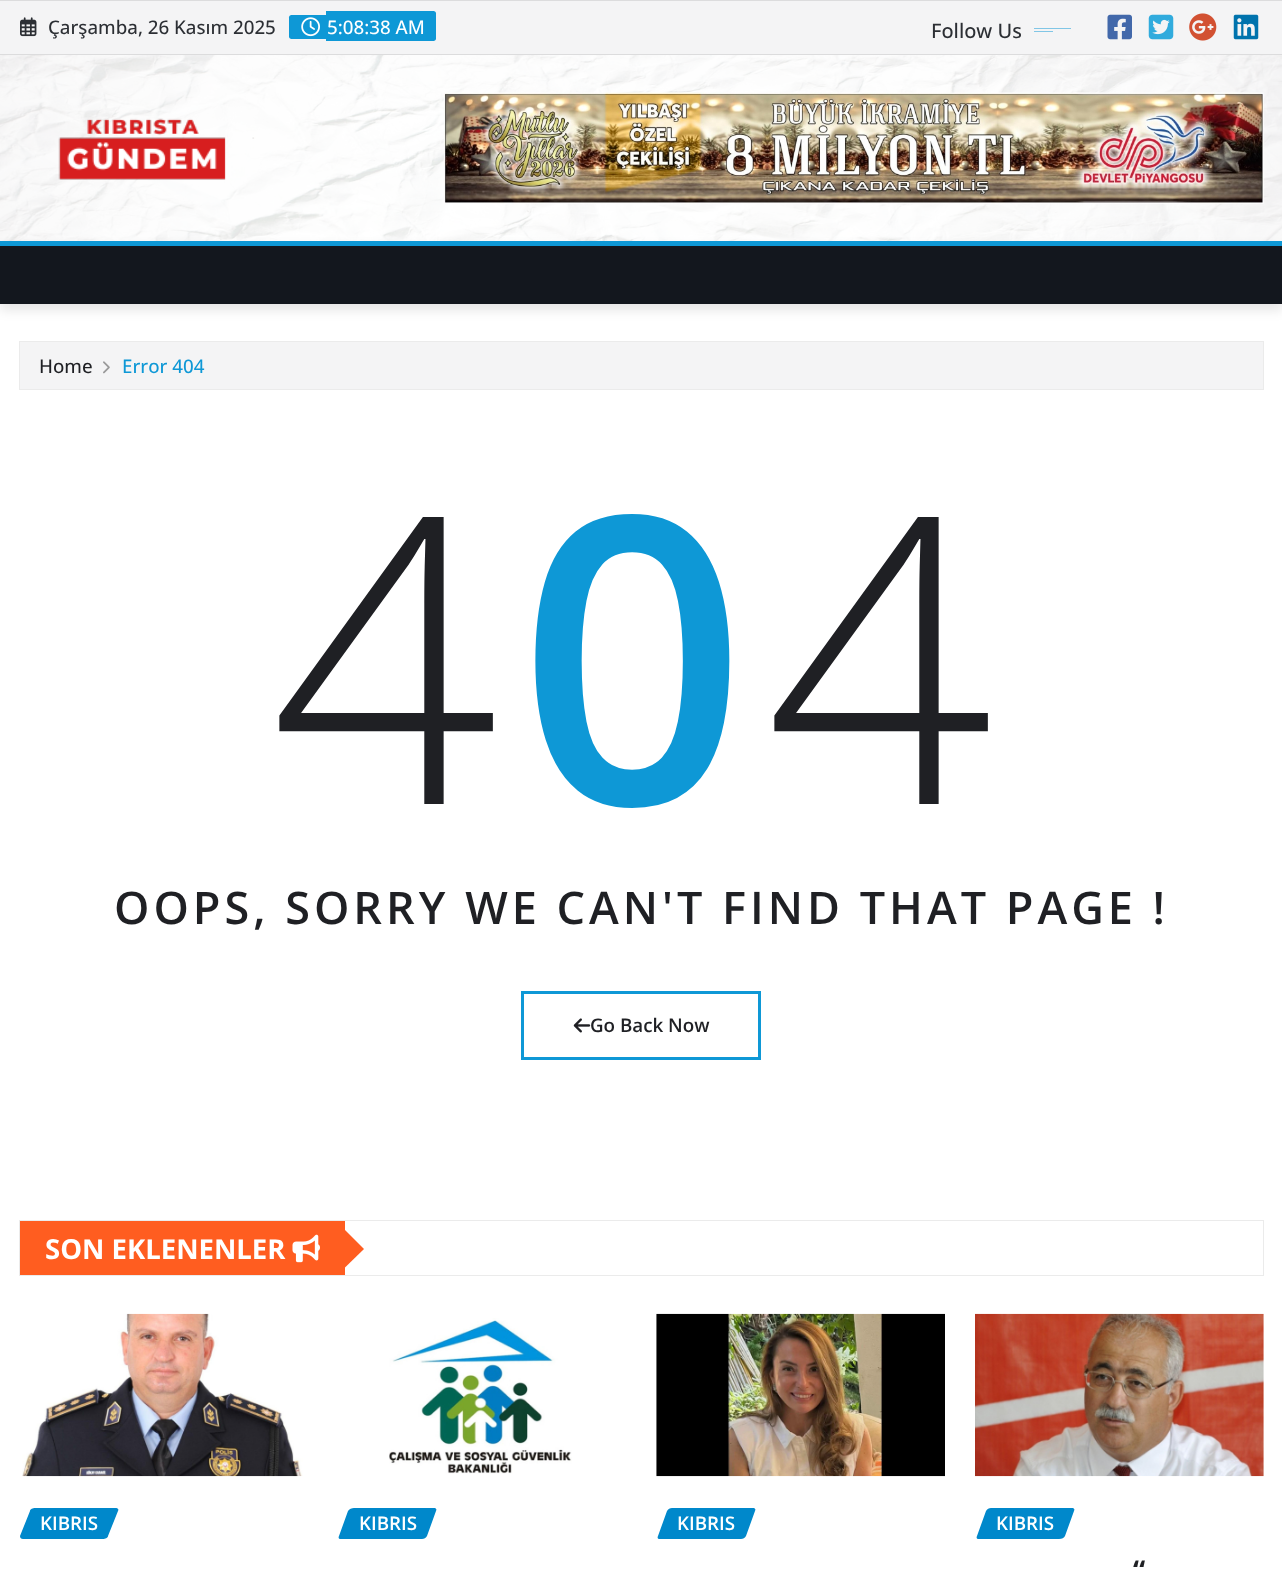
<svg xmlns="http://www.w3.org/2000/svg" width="1282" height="1572">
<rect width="100%" height="100%" fill="#fff"/>
<rect y="1" width="1282" height="53" fill="#f4f4f5"/>
<rect width="1282" height="1" fill="#dcdcdd"/>
<rect y="54" width="1282" height="1" fill="#dcdcdd"/>
<image x="20" y="17" width="17" height="20" href="media/1.png"/>
<text x="48" y="34" style="font-family:Open Sans;font-size:18.75px;font-weight:500;fill:#2c2f34">Çarşamba, 26 Kasım 2025</text>
<path d="M291.5 15h34.5v24h-34.5c-1.5 0-2.5-1-2.5-2.5v-19c0-1.5 1-2.5 2.5-2.5z" fill="#0e98d6"/>
<image x="301" y="17" width="19" height="20" href="media/2.png"/>
<path d="M326 11h107.5c1.5 0 2.5 1 2.5 2.5v25c0 1.5-1 2.5-2.5 2.5h-107.5z" fill="#0e98d6"/>
<text x="327" y="34" style="font-family:Open Sans;font-size:18.75px;font-weight:500;fill:#fff">5:08:38 AM</text>
<text x="931" y="38" style="font-family:Open Sans;font-size:20px;font-weight:500;fill:#2c2f34">Follow Us</text>
<rect x="1034" y="28" width="37" height="1" fill="#81c6e6"/>
<rect x="1034" y="31" width="19" height="1" fill="#81c6e6"/>
<image x="1107" y="14" width="25" height="26" href="media/3.png"/>
<image x="1148" y="14" width="26" height="26" href="media/4.png"/>
<image x="1189" y="13" width="28" height="28" href="media/5.png"/>
<image x="1233" y="14" width="26" height="26" href="media/6.png"/>
<image x="0" y="55" width="1282" height="186" href="media/7.png"/>
<image x="58" y="118" width="168" height="62" href="media/8.png"/>
<image x="443" y="92" width="821" height="112" href="media/9.png"/>
<rect y="248" width="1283" height="62" fill="#0000001a" filter="blur(6px)"/>
<rect y="246" width="1282" height="58" fill="#13171e"/>
<rect y="241" width="1282" height="5" fill="#0e98d6"/>
<rect x="19.5" y="341.5" width="1244" height="48" fill="#f4f4f5" stroke="#ebebeb"/>
<text x="39" y="373" style="font-family:Open Sans;font-size:18.75px;font-weight:500;fill:#1f2024">Home</text>
<image x="103" y="361" width="7" height="13" href="media/10.png"/>
<text x="122" y="373" style="font-family:Open Sans;font-size:18.75px;font-weight:500;fill:#0e98d6">Error 404</text>
<text x="270" y="804" style="font-family:Open Sans;font-size:400px;font-weight:300;letter-spacing:19px;fill:#1f2024">4</text>
<text x="518" y="804" style="font-family:Open Sans;font-size:400px;font-weight:600;letter-spacing:19px;fill:#0e98d6">0</text>
<text x="765" y="804" style="font-family:Open Sans;font-size:400px;font-weight:300;letter-spacing:19px;fill:#1f2024">4</text>
<text x="114" y="924" style="font-family:Open Sans;font-size:45px;font-weight:600;letter-spacing:4px;fill:#1f2024">OOPS, SORRY WE CAN'T FIND THAT PAGE !</text>
<rect x="522.5" y="992.5" width="237" height="66" fill="none" stroke="#0e98d6" stroke-width="3"/>
<image x="573" y="1018" width="18" height="15" href="media/11.png"/>
<text x="590" y="1032" style="font-family:Open Sans;font-size:18.75px;font-weight:600;fill:#1f2024">Go Back Now</text>
<rect x="19.5" y="1220.5" width="1244" height="55" fill="none" stroke="#ebebeb"/>
<rect x="20" y="1221" width="325" height="54" fill="#ff5d20"/>
<text x="45" y="1259" style="font-family:Open Sans;font-size:27.5px;font-weight:bold;fill:#fff">SON EKLENENLER</text>
<image x="292" y="1234" width="28" height="29" href="media/12.png"/>
<path d="M345 1267.5v-37.5l19 19z" fill="#ff5d20"/>
<image x="22" y="1313" width="281" height="164" href="media/13.png"/>
<path d="M35 1508h80c3 0 4 1 3 3l-10 25c0 2-3 3-5 3h-80c-2 0-3-1-3-3l10-25c0-2 3-3 5-3z" fill="#0088cb"/>
<text x="40" y="1530" style="font-family:Open Sans;font-size:18.75px;font-weight:600;fill:#fff">KIBRIS</text>
<image x="389" y="1318" width="183" height="156" href="media/14.png"/>
<path d="M354 1508h80c2 0 3 1 2 3l-9 25c-1 2-3 3-5 3h-81c-2 0-3-1-2-3l9-25c1-2 4-3 6-3z" fill="#0088cb"/>
<text x="359" y="1530" style="font-family:Open Sans;font-size:18.75px;font-weight:600;fill:#fff">KIBRIS</text>
<image x="656" y="1313" width="289" height="164" href="media/15.png"/>
<path d="M672 1508h81c2 0 3 1 2 3l-9 25c-1 2-3 3-5 3h-81c-2 0-3-1-2-3l9-25c1-2 3-3 5-3z" fill="#0088cb"/>
<text x="677" y="1530" style="font-family:Open Sans;font-size:18.75px;font-weight:600;fill:#fff">KIBRIS</text>
<image x="975" y="1313" width="289" height="164" href="media/16.png"/>
<path d="M991 1508h81c2 0 3 1 2 3l-9 25c-1 2-3 3-6 3h-80c-2 0-3-1-2-3l9-25c1-2 3-3 5-3z" fill="#0088cb"/>
<text x="996" y="1530" style="font-family:Open Sans;font-size:18.75px;font-weight:600;fill:#fff">KIBRIS</text>
<text x="1133" y="1580" style="font-family:Open Sans;font-size:27.5px;font-weight:bold;fill:#1f2024">“</text>
</svg>
